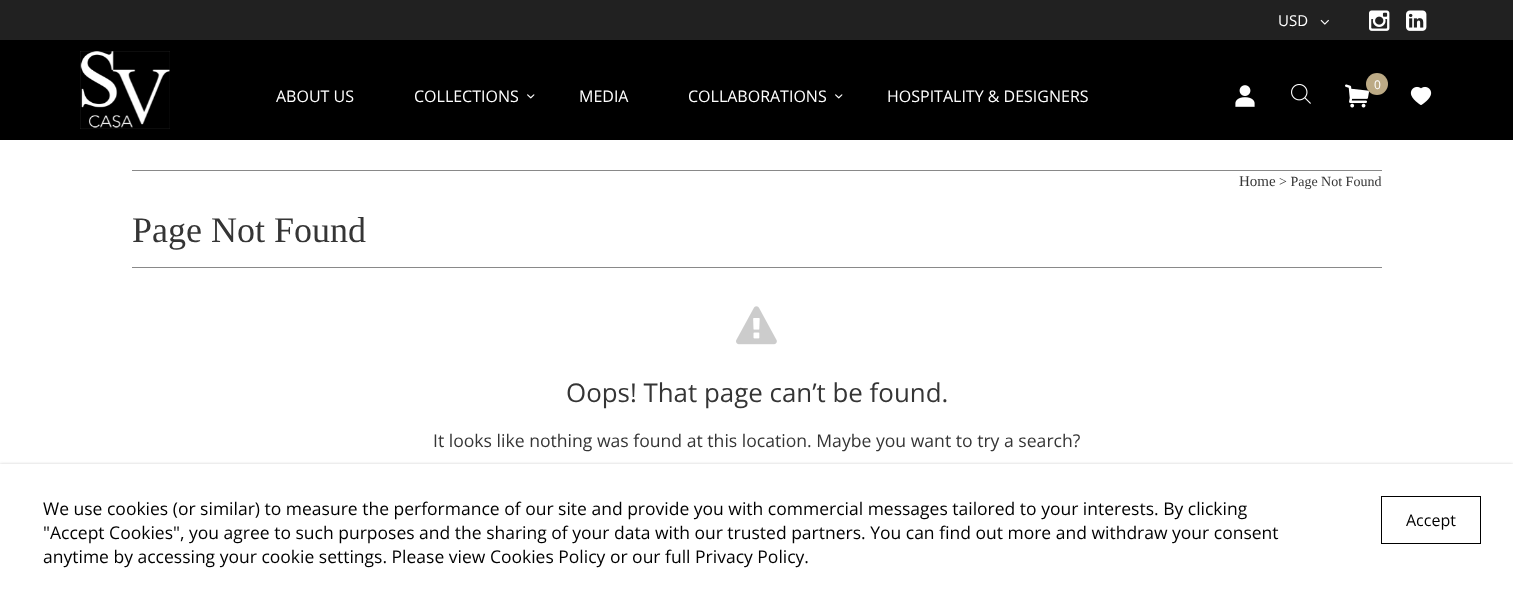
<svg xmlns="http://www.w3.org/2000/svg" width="1513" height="600">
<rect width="100%" height="100%" fill="#fff"/>
<rect width="1513" height="40" fill="#212121"/>
<text x="1278" y="26" style="font-family:Open Sans;font-size:15px;fill:#fff">USD</text>
<image x="1320" y="19" width="9" height="6" href="media/1.png"/>
<image x="1369" y="10" width="21" height="21" href="media/2.png"/>
<image x="1406" y="10" width="21" height="21" href="media/3.png"/>
<rect y="40" width="1513" height="100" fill="#000"/>
<image x="80" y="51" width="90" height="78" href="media/4.png"/>
<image x="1235" y="85" width="20" height="22" href="media/5.png"/>
<image x="1291" y="84" width="20" height="20" href="media/6.png"/>
<image x="1345" y="84" width="24" height="24" href="media/7.png"/>
<circle cx="1377" cy="84" r="11" fill="#bcaa85"/>
<text x="1374" y="89" style="font-family:Open Sans;font-size:12px;fill:#fff">0</text>
<image x="1410" y="86" width="22" height="19" href="media/8.png"/>
<text x="276" y="102" style="font-family:Open Sans;font-size:16px;fill:#fff">ABOUT US</text>
<text x="414" y="102" style="font-family:Open Sans;font-size:16px;fill:#fff">COLLECTIONS</text>
<image x="527" y="94" width="8" height="5" href="media/9.png"/>
<text x="579" y="102" style="font-family:Open Sans;font-size:16px;fill:#fff">MEDIA</text>
<text x="688" y="102" style="font-family:Open Sans;font-size:16px;fill:#fff">COLLABORATIONS</text>
<image x="835" y="94" width="8" height="5" href="media/9.png"/>
<text x="887" y="102" style="font-family:Open Sans;font-size:16px;fill:#fff">HOSPITALITY &amp; DESIGNERS</text>
<rect x="132" y="267" width="1250" height="1" fill="#898989"/>
<rect x="132" y="170" width="1250" height="1" fill="#898989"/>
<text x="1239" y="186" style="font-family:Liberation Serif;font-size:15px;fill:#353535">Home</text>
<text x="1279" y="186" style="font-family:Liberation Serif;font-size:14px;fill:#353535">&gt; Page Not Found</text>
<text x="132" y="242" style="font-family:Liberation Serif;font-size:36px;fill:#353535">Page Not Found</text>
<image x="736" y="306" width="41" height="39" href="media/10.png"/>
<text x="566" y="402" style="font-family:Open Sans;font-size:25.9px;fill:#353535">Oops! That page can’t be found.</text>
<text x="433" y="447" style="font-family:Open Sans;font-size:17.6px;fill:#353535">It looks like nothing was found at this location. Maybe you want to try a search?</text>
<rect y="464" width="1513" height="136" fill="#ccc" filter="blur(1.5px)"/>
<rect y="464" width="1513" height="136" fill="#fff"/>
<text x="43" y="515" style="font-family:Open Sans;font-size:17.5px;fill:#000">We use cookies (or similar) to measure the performance of our site and provide you with commercial messages tailored to your interests. By clicking</text>
<text x="43" y="539" style="font-family:Open Sans;font-size:17.5px;fill:#000">"Accept Cookies", you agree to such purposes and the sharing of your data with our trusted partners. You can find out more and withdraw your consent</text>
<text x="43" y="563" style="font-family:Open Sans;font-size:17.5px;fill:#000">anytime by accessing your cookie settings. Please view Cookies Policy or our full Privacy Policy.</text>
<rect x="1381.5" y="496.5" width="99" height="47" fill="none" stroke="#000"/>
<text x="1406" y="526" style="font-family:Open Sans;font-size:16px;fill:#000">Accept</text>
</svg>
